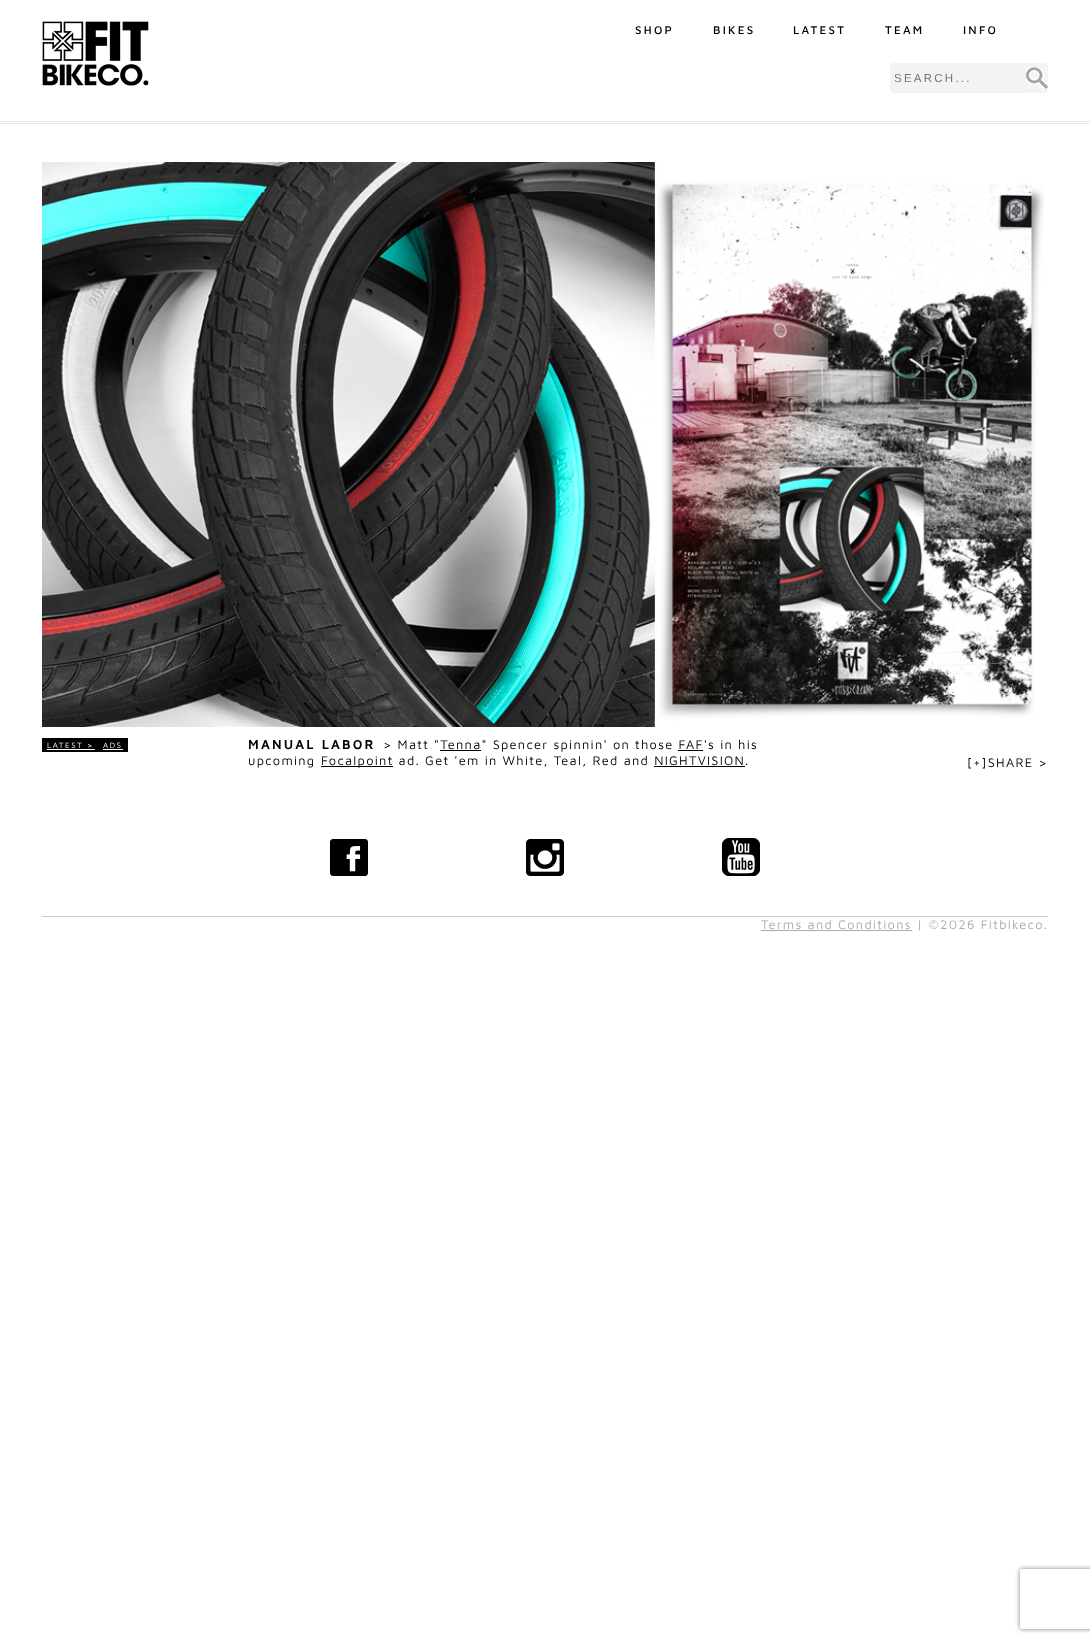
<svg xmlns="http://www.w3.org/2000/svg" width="1090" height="1643">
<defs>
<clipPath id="clip1"><path d="M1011 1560h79v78h-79zm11 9h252c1 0 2 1 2 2v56c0 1-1 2-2 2h-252c-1 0-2-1-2-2v-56c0-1 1-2 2-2z" clip-rule="evenodd"/></clipPath>
</defs>
<rect width="100%" height="100%" fill="#fff"/>
<rect y="121" width="1090" height="1" fill="#ebe9eb"/>
<rect y="123" width="1090" height="1" fill="#ebe9eb"/>
<image x="42" y="21" width="107" height="65" href="media/1.png"/>
<text x="635" y="34" style="font-family:Maven Pro;font-size:11.5px;font-weight:500;letter-spacing:2.25px;fill:#000">SHOP</text>
<text x="713" y="34" style="font-family:Maven Pro;font-size:11.5px;font-weight:500;letter-spacing:2.25px;fill:#000">BIKES</text>
<text x="793" y="34" style="font-family:Maven Pro;font-size:11.5px;font-weight:500;letter-spacing:2.25px;fill:#000">LATEST</text>
<text x="885" y="34" style="font-family:Maven Pro;font-size:11.5px;font-weight:500;letter-spacing:2.25px;fill:#000">TEAM</text>
<text x="963" y="34" style="font-family:Maven Pro;font-size:11.5px;font-weight:500;letter-spacing:2.25px;fill:#000">INFO</text>
<rect x="890" y="63" width="158" height="30" rx="4" fill="#f4f2f3"/>
<image x="1026" y="67" width="22" height="22" href="media/2.png"/>
<text x="894" y="82" style="font-family:Liberation Sans;font-size:11.5px;letter-spacing:2.25px;fill:#757575">SEARCH...</text>
<image x="42" y="162" width="1003" height="565" href="media/3.png"/>
<rect x="42" y="738" width="86" height="14" fill="#000"/>
<text x="47" y="748" style="font-family:Maven Pro;font-size:8px;letter-spacing:1.5px;fill:#fff">LATEST &gt;</text>
<rect x="47" y="749" width="48" height="1" fill="#fff"/>
<text x="103" y="748" style="font-family:Maven Pro;font-size:8px;letter-spacing:1.5px;fill:#fff">ADS</text>
<rect x="103" y="749" width="20" height="1" fill="#fff"/>
<text x="248" y="749" style="font-family:Maven Pro;font-size:12.8px;font-weight:bold;letter-spacing:2.5px;fill:#000">MANUAL LABOR</text>
<text x="383" y="749" style="font-family:Maven Pro;font-size:12.8px;letter-spacing:1.28px;fill:#000">&gt; Matt "Tenna" Spencer spinnin' on those FAF's in his</text>
<text x="248" y="765" style="font-family:Maven Pro;font-size:12.8px;letter-spacing:1.28px;fill:#000">upcoming</text>
<rect x="321" y="766" width="72" height="1" fill="#000"/>
<text x="321" y="765" style="font-family:Maven Pro;font-size:12.8px;letter-spacing:1.28px;fill:#000">Focalpoint ad. Get 'em in White, Teal, Red and NIGHTVISION.</text>
<rect x="440" y="750" width="41" height="1" fill="#000"/>
<rect x="678" y="750" width="25" height="1" fill="#000"/>
<rect x="654" y="766" width="91" height="1" fill="#000"/>
<text x="967" y="767" style="font-family:Maven Pro;font-size:12.8px;letter-spacing:1.28px;fill:#000">[+]SHARE &gt;</text>
<image x="330" y="839" width="38" height="37" href="media/4.png"/>
<image x="526" y="839" width="38" height="37" href="media/5.png"/>
<image x="722" y="838" width="38" height="38" href="media/6.png"/>
<rect x="42" y="916" width="1006" height="1" fill="#ccc"/>
<rect x="761" y="930" width="151" height="1" fill="#aaa"/>
<text x="761" y="929" style="font-family:Maven Pro;font-size:12.8px;letter-spacing:1.28px;fill:#aaa">Terms and Conditions | ©2026 Fitbikeco.</text>
<g clip-path="url(#clip1)">
<rect x="1020" y="1569" width="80" height="60" rx="2" fill="#808080" filter="blur(2.5px)"/>
</g>
</svg>
